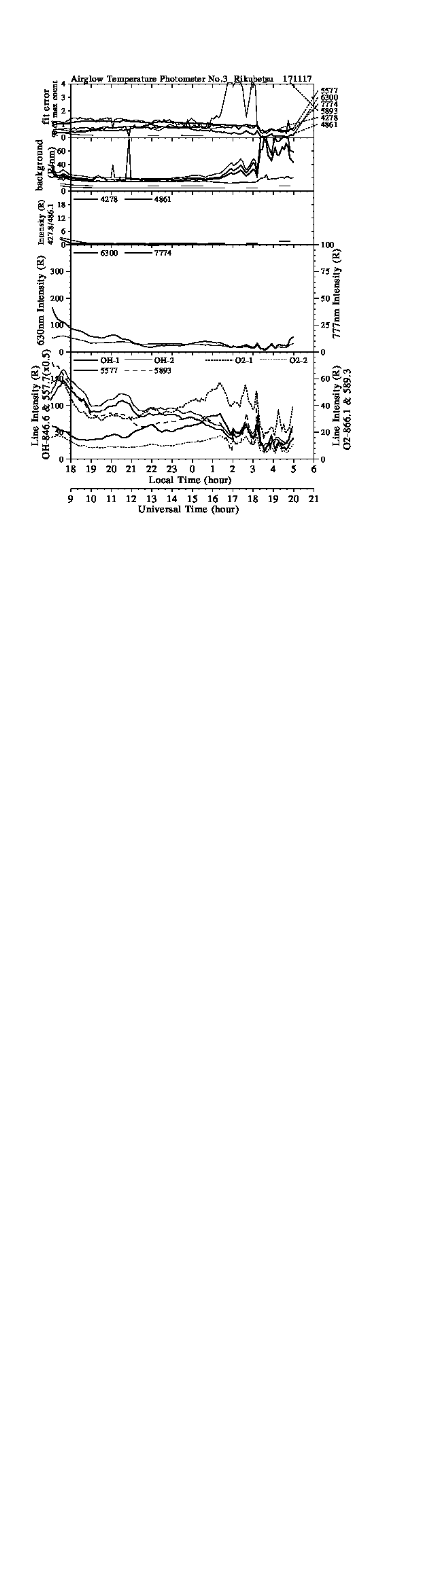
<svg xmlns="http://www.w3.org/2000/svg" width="438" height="1593">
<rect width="100%" height="100%" fill="#fff"/>
<image x="31" y="75" width="320" height="440" href="media/1.png"/>
</svg>
